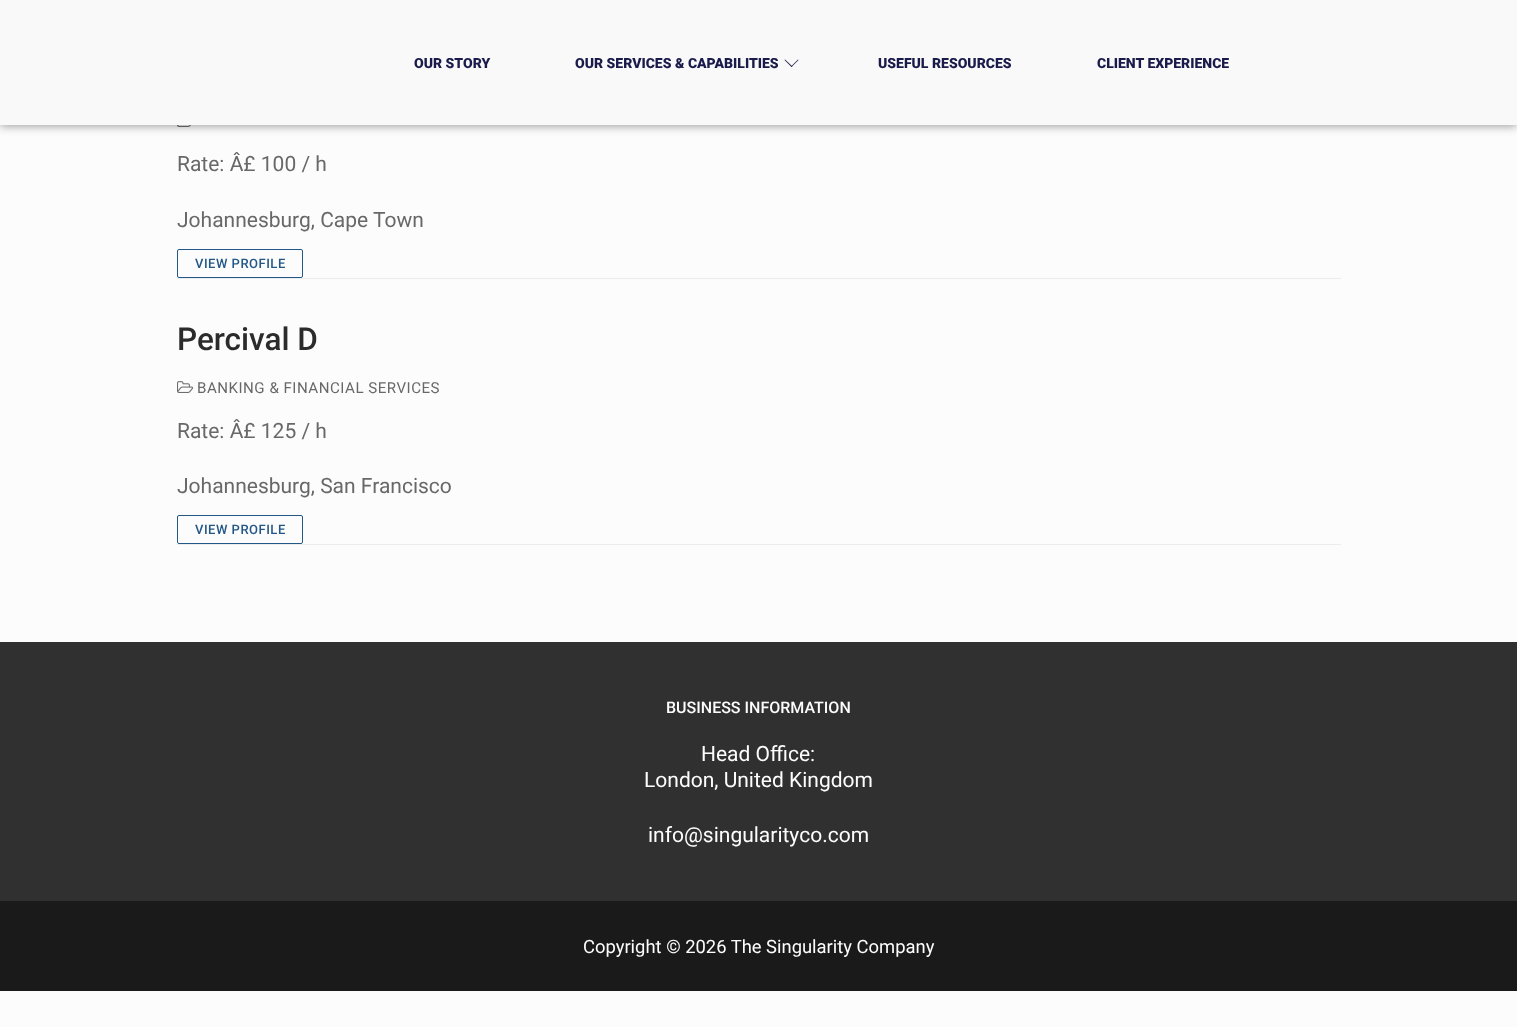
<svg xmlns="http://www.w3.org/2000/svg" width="1517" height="1027">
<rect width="100%" height="100%" fill="#fcfcfc"/>
<image x="177" y="125" width="14" height="2" href="media/1.png"/>
<rect y="1" width="1517" height="125" fill="#21212173" filter="blur(5px)"/>
<rect width="1517" height="125" fill="#f9f9f9"/>
<text x="414" y="68" style="font-family:Roboto;font-size:14px;font-weight:900;fill:#1a1b4b">OUR STORY</text>
<text x="575" y="68" style="font-family:Roboto;font-size:14px;font-weight:900;fill:#1a1b4b">OUR SERVICES &amp; CAPABILITIES</text>
<path d="M791.5 67l-7-7l.5-.5l7.5 7z" fill="#1a1b4b"/>
<path d="M791.5 67l-.5-.5l7-7l.5 .5z" fill="#1a1b4b"/>
<text x="878" y="68" style="font-family:Roboto;font-size:14px;font-weight:900;fill:#1a1b4b">USEFUL RESOURCES</text>
<text x="1097" y="68" style="font-family:Roboto;font-size:14px;font-weight:900;fill:#1a1b4b">CLIENT EXPERIENCE</text>
<rect x="177" y="278" width="1164" height="1" fill="#eaecee"/>
<text x="177" y="171" style="font-family:Roboto;font-size:21px;fill:#686868">Rate: Â£ 100 / h</text>
<text x="177" y="227" style="font-family:Roboto;font-size:21px;fill:#686868">Johannesburg, Cape Town</text>
<rect x="177.5" y="249.5" width="125" height="28" rx="1.5" fill="none" stroke="#235787"/>
<text x="195" y="268" style="font-family:Roboto;font-size:13px;font-weight:500;letter-spacing:0.5px;fill:#235787">VIEW PROFILE</text>
<rect x="177" y="544" width="1164" height="1" fill="#eaecee"/>
<text x="177" y="350" style="font-family:Roboto;font-size:31.5px;font-weight:500;fill:#2b2b2b">Percival D</text>
<image x="177" y="381" width="17" height="12" href="media/2.png"/>
<text x="197" y="393" style="font-family:Roboto;font-size:15.1px;letter-spacing:0.5px;fill:#686868">BANKING &amp; FINANCIAL SERVICES</text>
<text x="177" y="438" style="font-family:Roboto;font-size:21px;fill:#686868">Rate: Â£ 125 / h</text>
<text x="177" y="493" style="font-family:Roboto;font-size:21px;fill:#686868">Johannesburg, San Francisco</text>
<rect x="177.5" y="515.5" width="125" height="28" rx="1.5" fill="none" stroke="#235787"/>
<text x="195" y="534" style="font-family:Roboto;font-size:13px;font-weight:500;letter-spacing:0.5px;fill:#235787">VIEW PROFILE</text>
<rect y="642" width="1517" height="259" fill="#303030"/>
<text x="666" y="713" style="font-family:Roboto;font-size:16px;font-weight:500;fill:#fdfdfd">BUSINESS INFORMATION</text>
<text x="701" y="761" style="font-family:Roboto;font-size:21px;fill:#fdfdfd">Head Office:</text>
<text x="644" y="787" style="font-family:Roboto;font-size:21px;fill:#fdfdfd">London, United Kingdom</text>
<text x="648" y="842" style="font-family:Roboto;font-size:21px;fill:#fdfdfd">info@singularityco.com</text>
<rect y="901" width="1517" height="90" fill="#1a1a1a"/>
<text x="583" y="953" style="font-family:Roboto;font-size:18.4px;fill:#fdfdfd">Copyright © 2026 The Singularity Company</text>
</svg>
